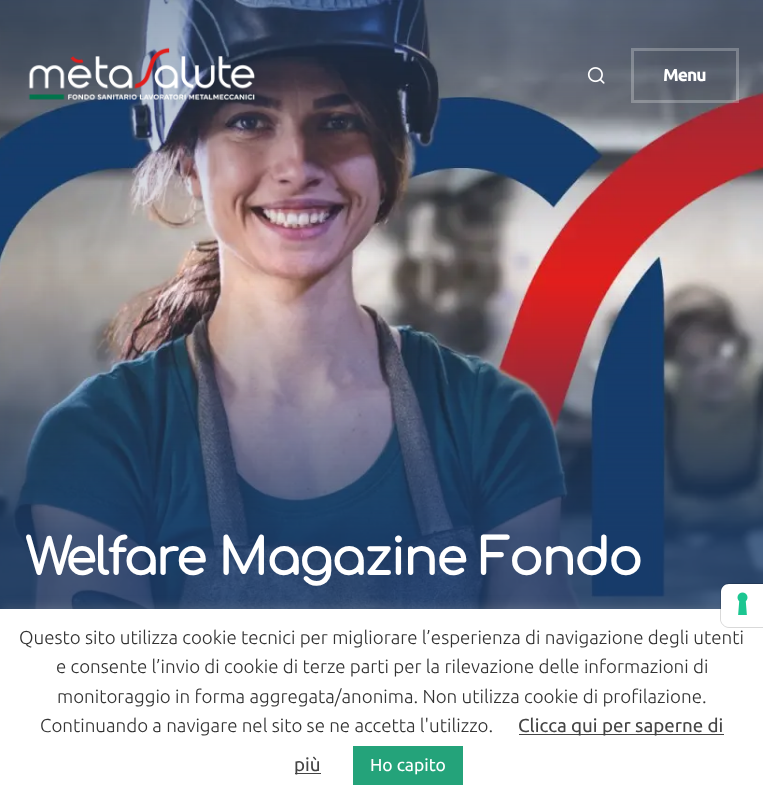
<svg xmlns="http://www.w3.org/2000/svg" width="763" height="806">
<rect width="100%" height="100%" fill="#fff"/>
<image x="0" y="0" width="763" height="609" href="media/1.png"/>
<image x="28" y="47" width="227" height="53" href="media/2.png"/>
<image x="587" y="67" width="18" height="17" href="media/3.png"/>
<rect x="632.5" y="49.5" width="105" height="52" fill="none" stroke="#ffffff40" stroke-width="3"/>
<text x="663" y="81" style="font-family:Ubuntu;font-size:17.5px;font-weight:bold;letter-spacing:-1px;fill:#fff">Menu</text>
<text x="25" y="575" style="font-family:Comfortaa;font-size:50px;font-weight:bold;letter-spacing:-1.25px;fill:#fff">Welfare Magazine Fondo</text>
<rect y="608" width="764" height="197" fill="#acabab4d" filter="blur(6px)"/>
<rect y="609" width="763" height="197" fill="#fff"/>
<path d="M729 583.5h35.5v44h-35.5c-4.5 0-8.5-4-8.5-8.5v-27c0-4.5 4-8.5 8.5-8.5z" fill="none" stroke="#00000026"/>
<path d="M729 584h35v42h-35c-4.5 0-8-3.5-8-8v-26c0-4.5 3.5-8 8-8z" fill="#fff"/>
<image x="737" y="592" width="11" height="23" href="media/4.png"/>
<text x="19" y="644" style="font-family:Ubuntu;font-size:18.75px;font-weight:300;fill:#333">Questo sito utilizza cookie tecnici per migliorare l’esperienza di navigazione degli utenti</text>
<text x="56" y="673" style="font-family:Ubuntu;font-size:18.75px;font-weight:300;fill:#333">e consente l’invio di cookie di terze parti per la rilevazione delle informazioni di</text>
<text x="57" y="703" style="font-family:Ubuntu;font-size:18.75px;font-weight:300;fill:#333">monitoraggio in forma aggregata/anonima. Non utilizza cookie di profilazione.</text>
<text x="40" y="732" style="font-family:Ubuntu;font-size:18.75px;font-weight:300;fill:#333">Continuando a navigare nel sito se ne accetta l'utilizzo.</text>
<rect x="519" y="734" width="205" height="1" fill="#444"/>
<text x="518" y="732" style="font-family:Ubuntu;font-size:18.75px;fill:#444">Clicca qui per saperne di</text>
<rect x="295" y="773" width="26" height="1" fill="#444"/>
<text x="294" y="771" style="font-family:Ubuntu;font-size:18.75px;fill:#444">più</text>
<rect x="353" y="746" width="110" height="39" fill="#24a37a"/>
<text x="370" y="771" style="font-family:Ubuntu;font-size:17.5px;fill:#fff">Ho capito</text>
</svg>
